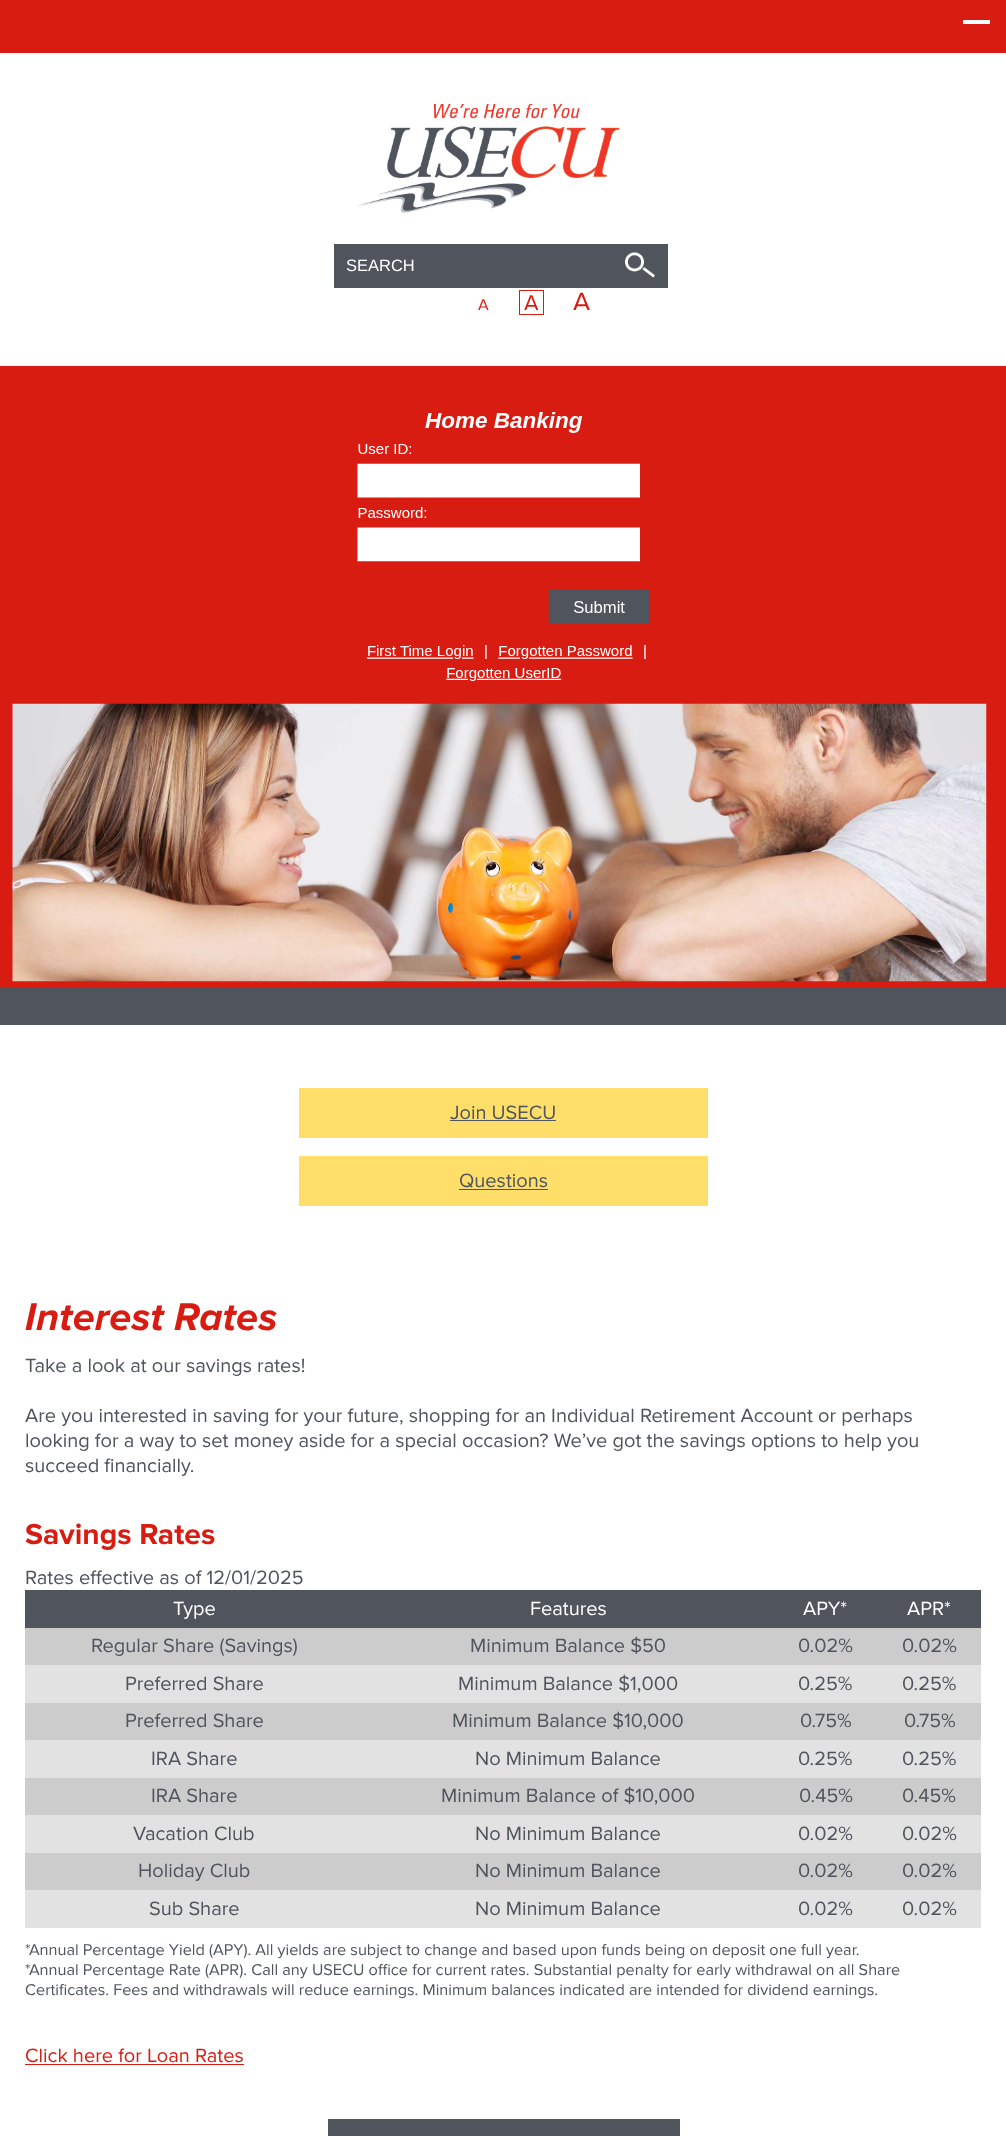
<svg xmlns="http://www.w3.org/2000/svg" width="1006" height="2136">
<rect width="100%" height="100%" fill="#fff"/>
<rect width="1006" height="53" fill="#d91c12"/>
<rect x="963" y="20" width="27" height="4" fill="#fff"/>
<image x="358" y="104" width="262" height="109" href="media/1.png"/>
<rect x="334" y="244" width="334" height="44" fill="#4f545d"/>
<text x="346" y="271" style="font-family:Liberation Sans;font-size:16.5px;fill:#fff">SEARCH</text>
<image x="625" y="252" width="30" height="26" href="media/2.png"/>
<text x="478" y="310" style="font-family:Proxima Nova;font-size:16.25px;fill:#d91c12">A</text>
<rect x="519.5" y="290.5" width="24" height="24" fill="none" stroke="#d91c12"/>
<text x="524" y="310" style="font-family:Proxima Nova;font-size:22px;fill:#d91c12">A</text>
<text x="573" y="310" style="font-family:Proxima Nova;font-size:26px;fill:#d91c12">A</text>
<rect y="366" width="1006" height="622" fill="#d91c12"/>
<rect y="988" width="1006" height="37" fill="#4f545d"/>
<image x="357" y="412" width="293" height="269" href="media/3.png"/>
<image x="12" y="703" width="975" height="279" href="media/4.png"/>
<rect x="299" y="1088" width="409" height="50" fill="#ffde6a"/>
<text x="450" y="1119" style="font-family:Proxima Nova;font-size:20px;fill:#4f545d">Join USECU</text>
<rect x="450" y="1120" width="106" height="1" fill="#4f545d"/>
<rect x="299" y="1156" width="409" height="50" fill="#ffde6a"/>
<text x="459" y="1187" style="font-family:Proxima Nova;font-size:20px;fill:#4f545d">Questions</text>
<rect x="459" y="1189" width="89" height="1" fill="#4f545d"/>
<text x="25" y="1330" style="font-family:Proxima Nova;font-size:40px;font-weight:bold;font-style:italic;fill:#d91c12">Interest Rates</text>
<text x="25" y="1372" style="font-family:Proxima Nova;font-size:20px;fill:#4f545d">Take a look at our savings rates!</text>
<text x="25" y="1422" style="font-family:Proxima Nova;font-size:20px;fill:#4f545d">Are you interested in saving for your future, shopping for an Individual Retirement Account or perhaps</text>
<text x="25" y="1447" style="font-family:Proxima Nova;font-size:20px;fill:#4f545d">looking for a way to set money aside for a special occasion? We’ve got the savings options to help you</text>
<text x="25" y="1472" style="font-family:Proxima Nova;font-size:20px;fill:#4f545d">succeed financially.</text>
<text x="25" y="1544" style="font-family:Proxima Nova;font-size:30px;font-weight:bold;fill:#d91c12">Savings Rates</text>
<text x="25" y="1584" style="font-family:Proxima Nova;font-size:20px;fill:#4f545d">Rates effective as of 12/01/2025</text>
<rect x="25" y="1590" width="956" height="38" fill="#4f545d"/>
<text x="173" y="1615" style="font-family:Proxima Nova;font-size:20px;fill:#fff">Type</text>
<text x="530" y="1615" style="font-family:Proxima Nova;font-size:20px;fill:#fff">Features</text>
<text x="803" y="1615" style="font-family:Proxima Nova;font-size:20px;fill:#fff">APY*</text>
<text x="907" y="1615" style="font-family:Proxima Nova;font-size:20px;fill:#fff">APR*</text>
<rect x="25" y="1628" width="956" height="37" fill="#ccc"/>
<text x="91" y="1652" style="font-family:Proxima Nova;font-size:20px;fill:#4f545d">Regular Share (Savings)</text>
<text x="470" y="1652" style="font-family:Proxima Nova;font-size:20px;fill:#4f545d">Minimum Balance $50</text>
<text x="798" y="1652" style="font-family:Proxima Nova;font-size:20px;fill:#4f545d">0.02%</text>
<text x="902" y="1652" style="font-family:Proxima Nova;font-size:20px;fill:#4f545d">0.02%</text>
<rect x="25" y="1665" width="956" height="38" fill="#e2e2e2"/>
<text x="125" y="1690" style="font-family:Proxima Nova;font-size:20px;fill:#4f545d">Preferred Share</text>
<text x="458" y="1690" style="font-family:Proxima Nova;font-size:20px;fill:#4f545d">Minimum Balance $1,000</text>
<text x="798" y="1690" style="font-family:Proxima Nova;font-size:20px;fill:#4f545d">0.25%</text>
<text x="902" y="1690" style="font-family:Proxima Nova;font-size:20px;fill:#4f545d">0.25%</text>
<rect x="25" y="1703" width="956" height="37" fill="#ccc"/>
<text x="125" y="1727" style="font-family:Proxima Nova;font-size:20px;fill:#4f545d">Preferred Share</text>
<text x="452" y="1727" style="font-family:Proxima Nova;font-size:20px;fill:#4f545d">Minimum Balance $10,000</text>
<text x="800" y="1727" style="font-family:Proxima Nova;font-size:20px;fill:#4f545d">0.75%</text>
<text x="904" y="1727" style="font-family:Proxima Nova;font-size:20px;fill:#4f545d">0.75%</text>
<rect x="25" y="1740" width="956" height="38" fill="#e2e2e2"/>
<text x="151" y="1765" style="font-family:Proxima Nova;font-size:20px;fill:#4f545d">IRA Share</text>
<text x="475" y="1765" style="font-family:Proxima Nova;font-size:20px;fill:#4f545d">No Minimum Balance</text>
<text x="798" y="1765" style="font-family:Proxima Nova;font-size:20px;fill:#4f545d">0.25%</text>
<text x="902" y="1765" style="font-family:Proxima Nova;font-size:20px;fill:#4f545d">0.25%</text>
<rect x="25" y="1778" width="956" height="37" fill="#ccc"/>
<text x="151" y="1802" style="font-family:Proxima Nova;font-size:20px;fill:#4f545d">IRA Share</text>
<text x="441" y="1802" style="font-family:Proxima Nova;font-size:20px;fill:#4f545d">Minimum Balance of $10,000</text>
<text x="799" y="1802" style="font-family:Proxima Nova;font-size:20px;fill:#4f545d">0.45%</text>
<text x="902" y="1802" style="font-family:Proxima Nova;font-size:20px;fill:#4f545d">0.45%</text>
<rect x="25" y="1815" width="956" height="38" fill="#e2e2e2"/>
<text x="133" y="1840" style="font-family:Proxima Nova;font-size:20px;fill:#4f545d">Vacation Club</text>
<text x="475" y="1840" style="font-family:Proxima Nova;font-size:20px;fill:#4f545d">No Minimum Balance</text>
<text x="798" y="1840" style="font-family:Proxima Nova;font-size:20px;fill:#4f545d">0.02%</text>
<text x="902" y="1840" style="font-family:Proxima Nova;font-size:20px;fill:#4f545d">0.02%</text>
<rect x="25" y="1853" width="956" height="37" fill="#ccc"/>
<text x="138" y="1877" style="font-family:Proxima Nova;font-size:20px;fill:#4f545d">Holiday Club</text>
<text x="475" y="1877" style="font-family:Proxima Nova;font-size:20px;fill:#4f545d">No Minimum Balance</text>
<text x="798" y="1877" style="font-family:Proxima Nova;font-size:20px;fill:#4f545d">0.02%</text>
<text x="902" y="1877" style="font-family:Proxima Nova;font-size:20px;fill:#4f545d">0.02%</text>
<rect x="25" y="1890" width="956" height="38" fill="#e2e2e2"/>
<text x="149" y="1915" style="font-family:Proxima Nova;font-size:20px;fill:#4f545d">Sub Share</text>
<text x="475" y="1915" style="font-family:Proxima Nova;font-size:20px;fill:#4f545d">No Minimum Balance</text>
<text x="798" y="1915" style="font-family:Proxima Nova;font-size:20px;fill:#4f545d">0.02%</text>
<text x="902" y="1915" style="font-family:Proxima Nova;font-size:20px;fill:#4f545d">0.02%</text>
<text x="25" y="1955" style="font-family:Proxima Nova;font-size:16.25px;fill:#4f545d">*Annual Percentage Yield (APY). All yields are subject to change and based upon funds being on deposit one full year.</text>
<text x="25" y="1975" style="font-family:Proxima Nova;font-size:16.25px;fill:#4f545d">*Annual Percentage Rate (APR). Call any USECU office for current rates. Substantial penalty for early withdrawal on all Share</text>
<text x="25" y="1995" style="font-family:Proxima Nova;font-size:16.25px;fill:#4f545d">Certificates. Fees and withdrawals will reduce earnings. Minimum balances indicated are intended for dividend earnings.</text>
<text x="25" y="2062" style="font-family:Proxima Nova;font-size:20px;fill:#d91c12">Click here for Loan Rates</text>
<rect x="25" y="2064" width="219" height="1" fill="#d91c12"/>
<rect x="328" y="2119" width="352" height="17" fill="#4f545d"/>
</svg>
